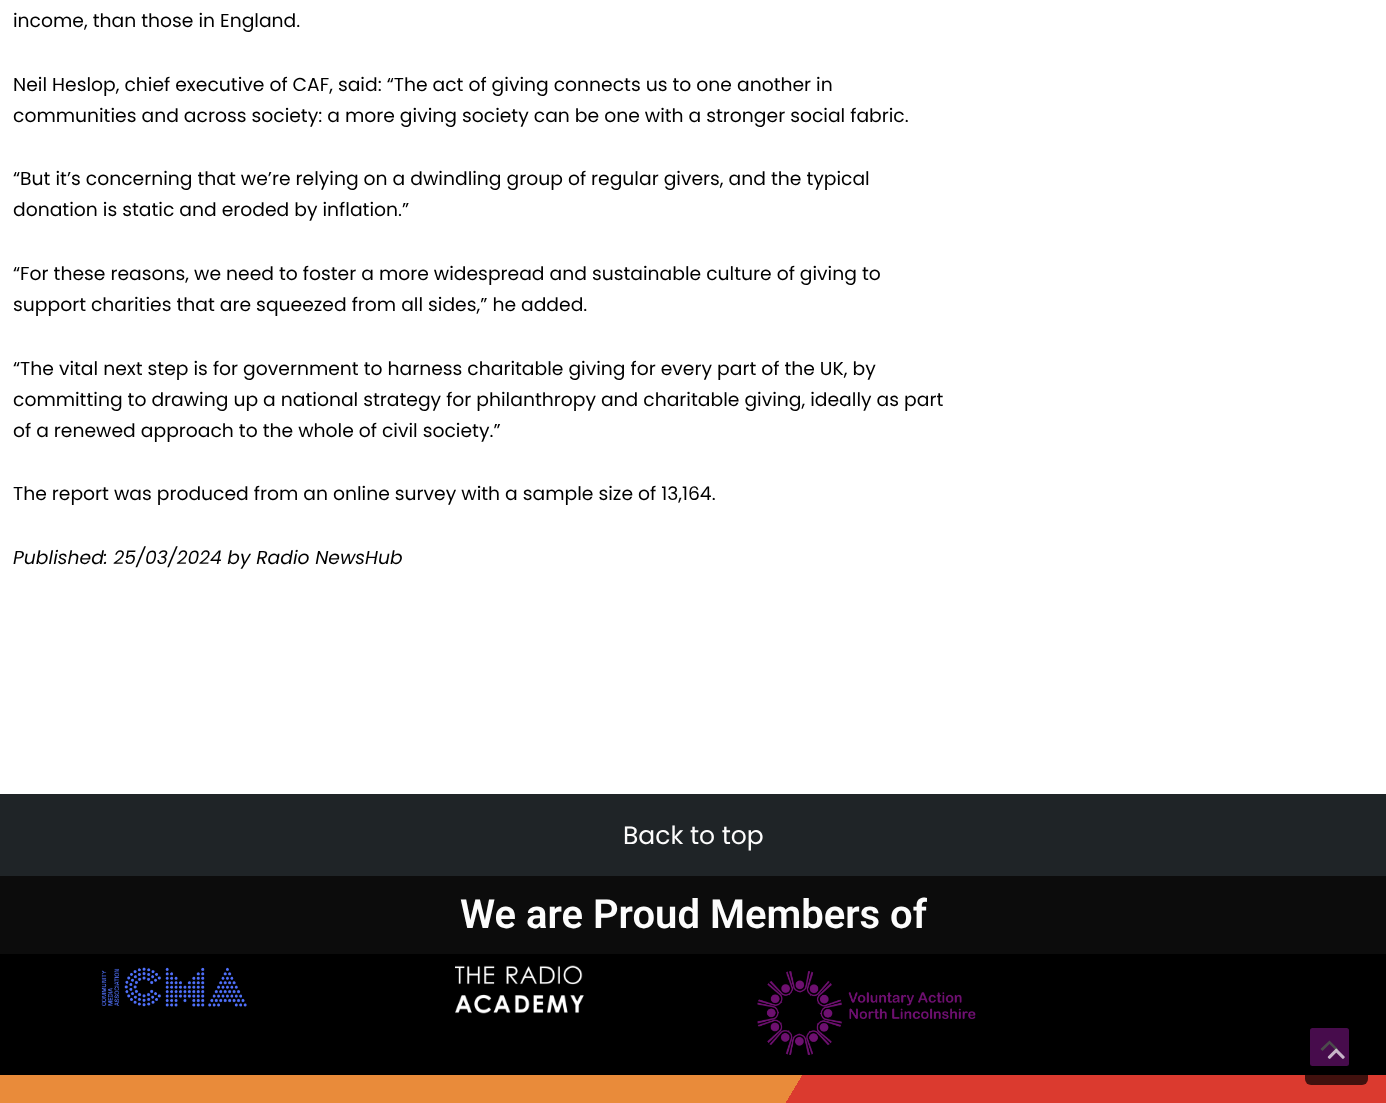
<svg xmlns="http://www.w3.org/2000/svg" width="1386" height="1103">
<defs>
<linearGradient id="g1" gradientUnits="userSpaceOnUse" x1="1320" y1="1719" x2="66" y2="965"><stop offset="0.53" stop-color="#db3a2f"/><stop offset="0.53" stop-color="#e98b3a"/></linearGradient>
</defs>
<rect width="100%" height="100%" fill="#fff"/>
<text x="13" y="27" style="font-family:Poppins;font-size:18.75px;fill:#000">income, than those in England.</text>
<text x="13" y="91" style="font-family:Poppins;font-size:18.75px;fill:#000">Neil Heslop, chief executive of CAF, said: “The act of giving connects us to one another in</text>
<text x="13" y="122" style="font-family:Poppins;font-size:18.75px;fill:#000">communities and across society: a more giving society can be one with a stronger social fabric.</text>
<text x="13" y="185" style="font-family:Poppins;font-size:18.75px;fill:#000">“But it’s concerning that we’re relying on a dwindling group of regular givers, and the typical</text>
<text x="13" y="216" style="font-family:Poppins;font-size:18.75px;fill:#000">donation is static and eroded by inflation.”</text>
<text x="13" y="280" style="font-family:Poppins;font-size:18.75px;fill:#000">“For these reasons, we need to foster a more widespread and sustainable culture of giving to</text>
<text x="13" y="311" style="font-family:Poppins;font-size:18.75px;fill:#000">support charities that are squeezed from all sides,” he added.</text>
<text x="13" y="375" style="font-family:Poppins;font-size:18.75px;fill:#000">“The vital next step is for government to harness charitable giving for every part of the UK, by</text>
<text x="13" y="406" style="font-family:Poppins;font-size:18.75px;fill:#000">committing to drawing up a national strategy for philanthropy and charitable giving, ideally as part</text>
<text x="13" y="437" style="font-family:Poppins;font-size:18.75px;fill:#000">of a renewed approach to the whole of civil society.”</text>
<text x="13" y="500" style="font-family:Poppins;font-size:18.75px;fill:#000">The report was produced from an online survey with a sample size of 13,164.</text>
<text x="13" y="564" style="font-family:Poppins;font-size:18.75px;font-style:italic;fill:#000">Published: 25/03/2024 by Radio NewsHub</text>
<rect y="794" width="1386" height="82" fill="#1f2427"/>
<text x="623" y="844" style="font-family:Poppins;font-size:25px;fill:#fcfcfc">Back to top</text>
<rect y="876" width="1386" height="78" fill="#0c0c0c"/>
<text x="460" y="928" style="font-family:Roboto;font-size:40px;font-weight:600;fill:#fcfcfc">We are Proud Members of</text>
<rect y="954" width="1386" height="121" fill="#000"/>
<image x="101" y="967" width="146" height="40" href="media/1.png"/>
<image x="455" y="965" width="129" height="49" href="media/2.png"/>
<image x="757" y="971" width="219" height="84" href="media/3.png"/>
<rect y="1075" width="1386" height="28" fill="url(#g1)"/>
<rect x="1310" y="1028" width="39" height="38" rx="2.5" fill="#ed28ff"/>
<path d="M1338 1049l-8.5-8.5l-9 8.5l2 2l7-7l7 7z" fill="#fff"/>
<rect x="1305" y="1023" width="63" height="62" rx="6" fill="#000000b3"/>
<image x="1327" y="1048" width="18" height="11" href="media/4.png"/>
</svg>
